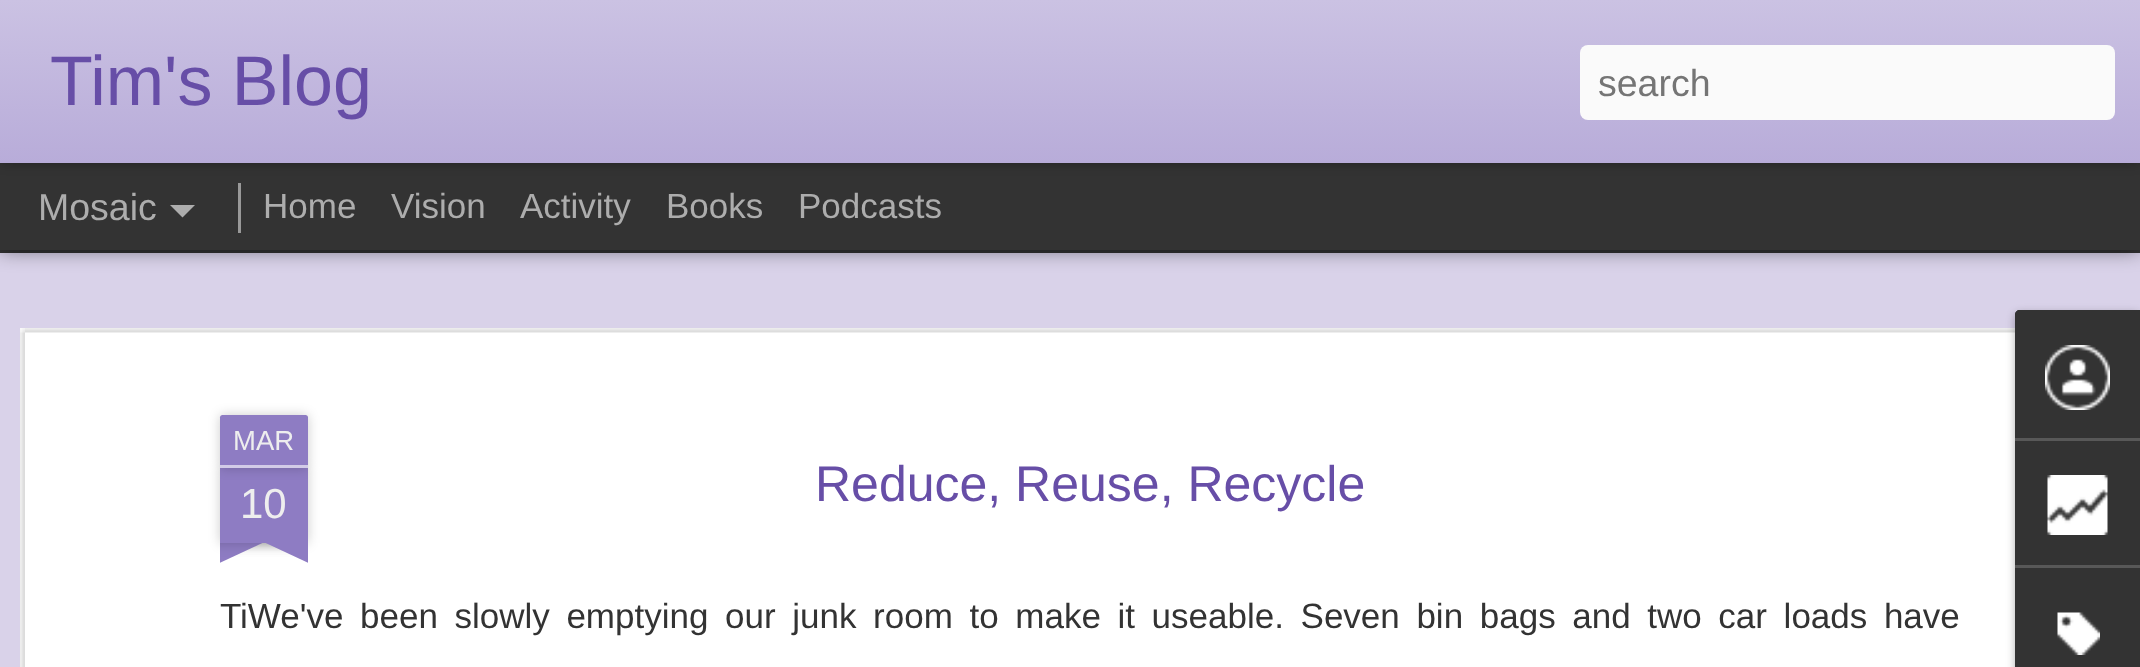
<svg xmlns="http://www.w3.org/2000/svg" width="2140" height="667">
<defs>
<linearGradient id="g1" gradientUnits="userSpaceOnUse" x1="0" y1="0" x2="0" y2="163"><stop offset="0" stop-color="#cbc2e3"/><stop offset="1" stop-color="#b8acd9"/></linearGradient>
<clipPath id="clip1"><rect x="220" y="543" width="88" height="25"/></clipPath>
<clipPath id="clip2"><rect x="220" y="543" width="88" height="25"/></clipPath>
</defs>
<rect width="100%" height="100%" fill="#333"/>
<rect y="253" width="2140" height="414" fill="#d9d2e9"/>
<rect y="163" width="2140" height="87" fill="#00000080" filter="blur(10px)"/>
<rect y="163" width="2140" height="87" fill="#333"/>
<rect width="2140" height="163" fill="#0000004d" filter="blur(6px)"/>
<rect width="2140" height="163" fill="url(#g1)"/>
<text x="50" y="105" style="font-family:Liberation Sans;font-size:70px;fill:#674ea7">Tim's Blog</text>
<rect x="1580" y="45" width="535" height="75" rx="8" fill="#fafafa"/>
<text x="1598" y="96" style="font-family:Liberation Sans;font-size:37.5px;fill:#757575">search</text>
<text x="38" y="220" style="font-family:Liberation Sans;font-size:37.5px;fill:#adadad">Mosaic</text>
<path d="M170 205h25l-12.5 12.5z" fill="#adadad"/>
<rect x="238" y="183" width="3" height="50" fill="#999"/>
<text x="263" y="218" style="font-family:Liberation Sans;font-size:35px;fill:#adadad">Home</text>
<text x="391" y="218" style="font-family:Liberation Sans;font-size:35px;fill:#adadad">Vision</text>
<text x="520" y="218" style="font-family:Liberation Sans;font-size:35px;fill:#adadad">Activity</text>
<text x="666" y="218" style="font-family:Liberation Sans;font-size:35px;fill:#adadad">Books</text>
<text x="798" y="218" style="font-family:Liberation Sans;font-size:35px;fill:#adadad">Podcasts</text>
<rect x="20" y="328" width="1995" height="339" fill="#fff"/>
<image x="20" y="328" width="1995" height="339" href="media/1.png"/>
<rect x="220" y="468" width="88" height="75" fill="#00000033" filter="blur(6px)"/>
<rect x="220" y="468" width="88" height="75" fill="#8e7cc3"/>
<rect x="220" y="415" width="88" height="53" rx="2.5" fill="#00000033" filter="blur(6px)"/>
<path d="M222.5 415h83c1.5 0 2.5 1 2.5 2.5v50.5h-88v-50.5c0-1.5 1-2.5 2.5-2.5z" fill="#8e7cc3"/>
<rect x="220" y="465" width="88" height="3" fill="#d2cbe7"/>
<text x="233" y="450" style="font-family:Liberation Sans;font-size:27.5px;fill:#eee">MAR</text>
<text x="240" y="518" style="font-family:Liberation Sans;font-size:42px;fill:#eee">10</text>
<g clip-path="url(#clip1)">
<rect x="198" y="518" width="125" height="25" fill="#00000033" filter="blur(6.5px)"/>
</g>
<g clip-path="url(#clip2)">
<path d="M198 545l113-53l11 23l-113 53z" fill="#8e7cc3"/>
</g>
<g clip-path="url(#clip1)">
<rect x="205" y="518" width="125" height="25" fill="#00000033" filter="blur(6.5px)"/>
</g>
<g clip-path="url(#clip2)">
<path d="M216 492l113 53l-10 23l-113-53z" fill="#8e7cc3"/>
</g>
<text x="815" y="501" style="font-family:Liberation Sans;font-size:50px;fill:#674ea7">Reduce, Reuse, Recycle</text>
<text x="220" y="628" word-spacing="6.9" style="font-family:Liberation Sans;font-size:35px;fill:#333">TiWe've been slowly emptying our junk room to make it useable. Seven bin bags and two car loads have</text>
<rect x="2015" y="313" width="125" height="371" rx="5" fill="#0000004d" filter="blur(4px)"/>
<path d="M2020 310h120v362h-120c-3 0-5-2-5-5v-352c0-3 2-5 5-5z" fill="#333"/>
<path d="M2020 310h120v128h-125v-123c0-3 2-5 5-5z" fill="#333"/>
<image x="2045" y="345" width="65" height="65" href="media/2.png"/>
<rect x="2015" y="438" width="125" height="3" fill="#585858"/>
<image x="2047" y="475" width="61" height="60" href="media/3.png"/>
<rect x="2015" y="565" width="125" height="3" fill="#585858"/>
<image x="2057" y="612" width="43" height="43" href="media/4.png"/>
</svg>
